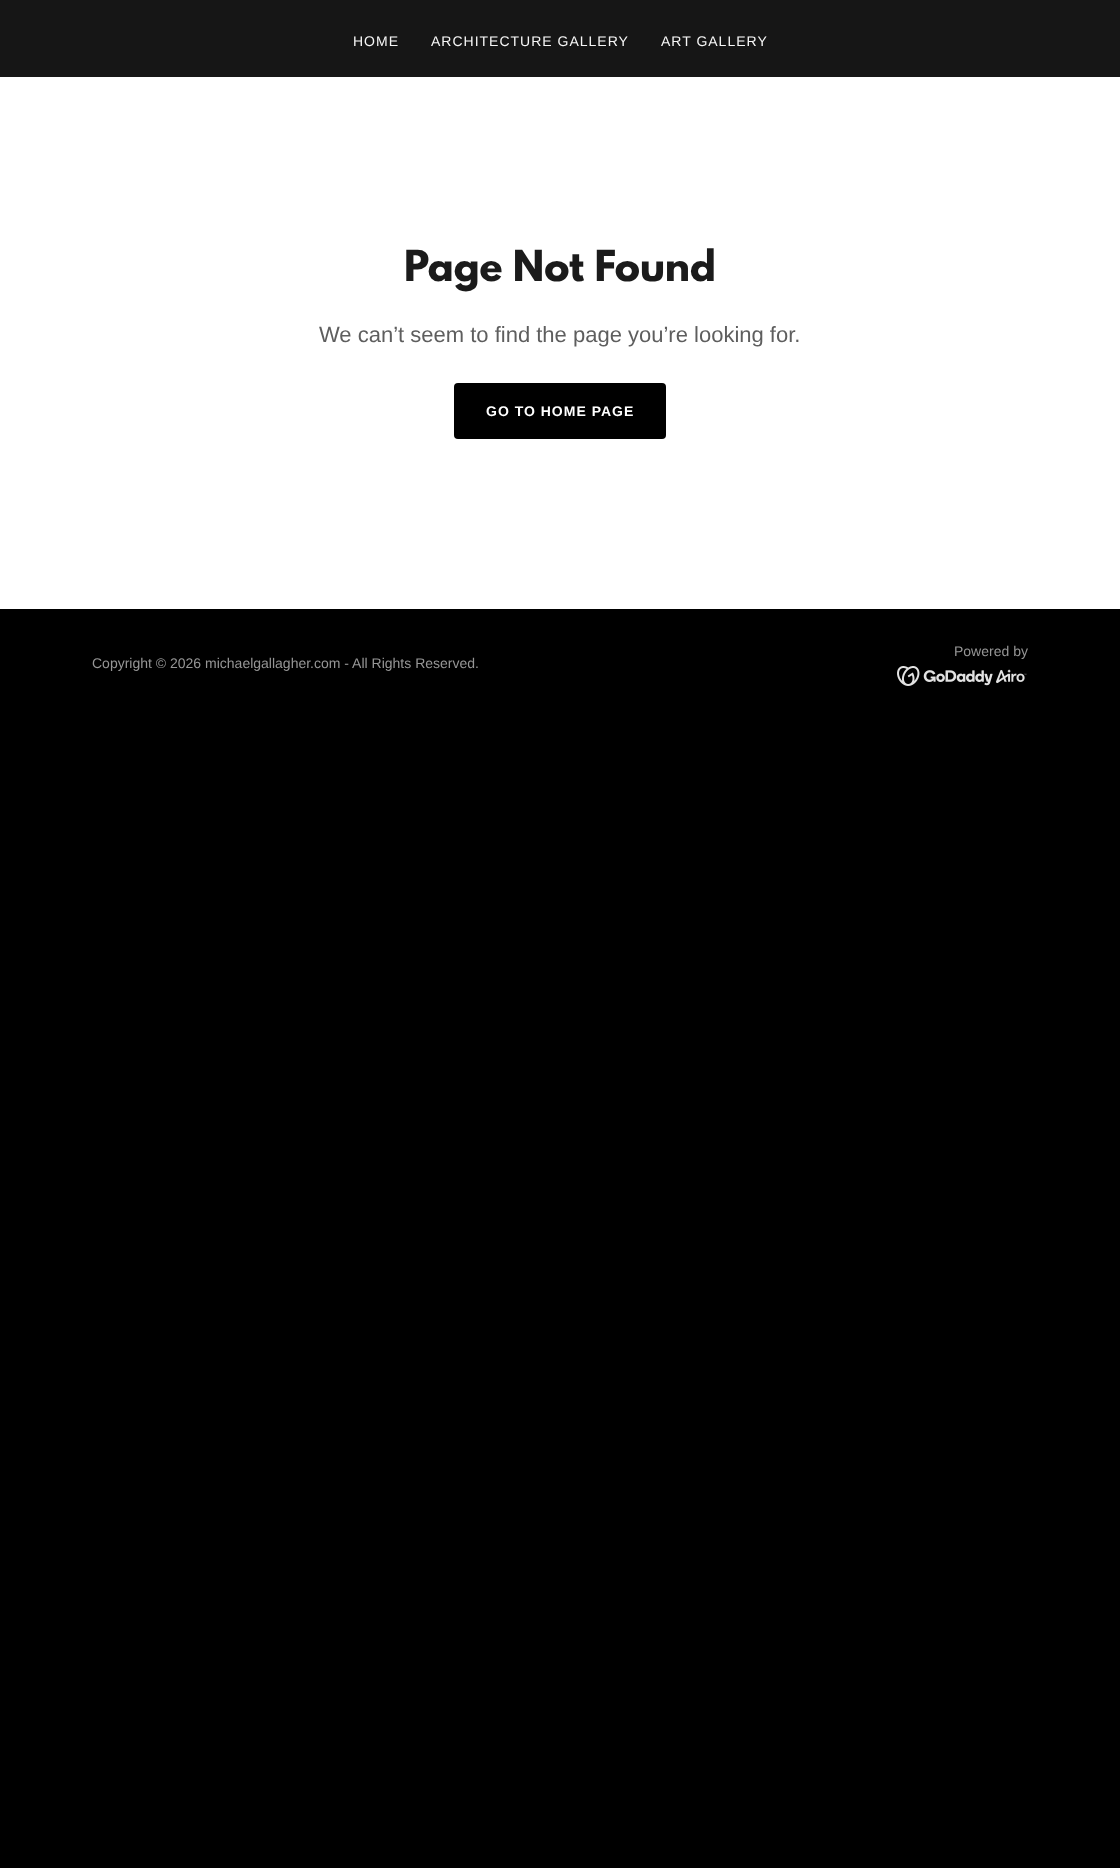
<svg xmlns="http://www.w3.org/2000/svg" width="1120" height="1868">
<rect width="100%" height="100%" fill="#000"/>
<rect width="1120" height="77" fill="#161616"/>
<text x="353" y="46" style="font-family:Liberation Sans;font-size:14px;letter-spacing:1px;fill:#f7f7f7">HOME</text>
<text x="431" y="46" style="font-family:Liberation Sans;font-size:14px;letter-spacing:1px;fill:#f7f7f7">ARCHITECTURE GALLERY</text>
<text x="661" y="46" style="font-family:Liberation Sans;font-size:14px;letter-spacing:1px;fill:#f7f7f7">ART GALLERY</text>
<rect y="77" width="1120" height="532" fill="#fff"/>
<text x="404" y="281" style="font-family:League Spartan;font-size:38px;font-weight:bold;fill:#1b1b1b">Page Not Found</text>
<text x="319" y="342" style="font-family:Liberation Sans;font-size:22px;fill:#5e5e5e">We can’t seem to find the page you’re looking for.</text>
<rect x="454" y="383" width="212" height="56" rx="4" fill="#000"/>
<text x="486" y="416" style="font-family:Liberation Sans;font-size:14px;font-weight:bold;letter-spacing:1px;fill:#fff">GO TO HOME PAGE</text>
<text x="954" y="656" style="font-family:Liberation Sans;font-size:14px;fill:#969696">Powered by</text>
<image x="897" y="666" width="130" height="20" href="media/1.png"/>
<text x="92" y="668" style="font-family:Liberation Sans;font-size:14px;fill:#969696">Copyright © 2026 michaelgallagher.com - All Rights Reserved.</text>
</svg>
